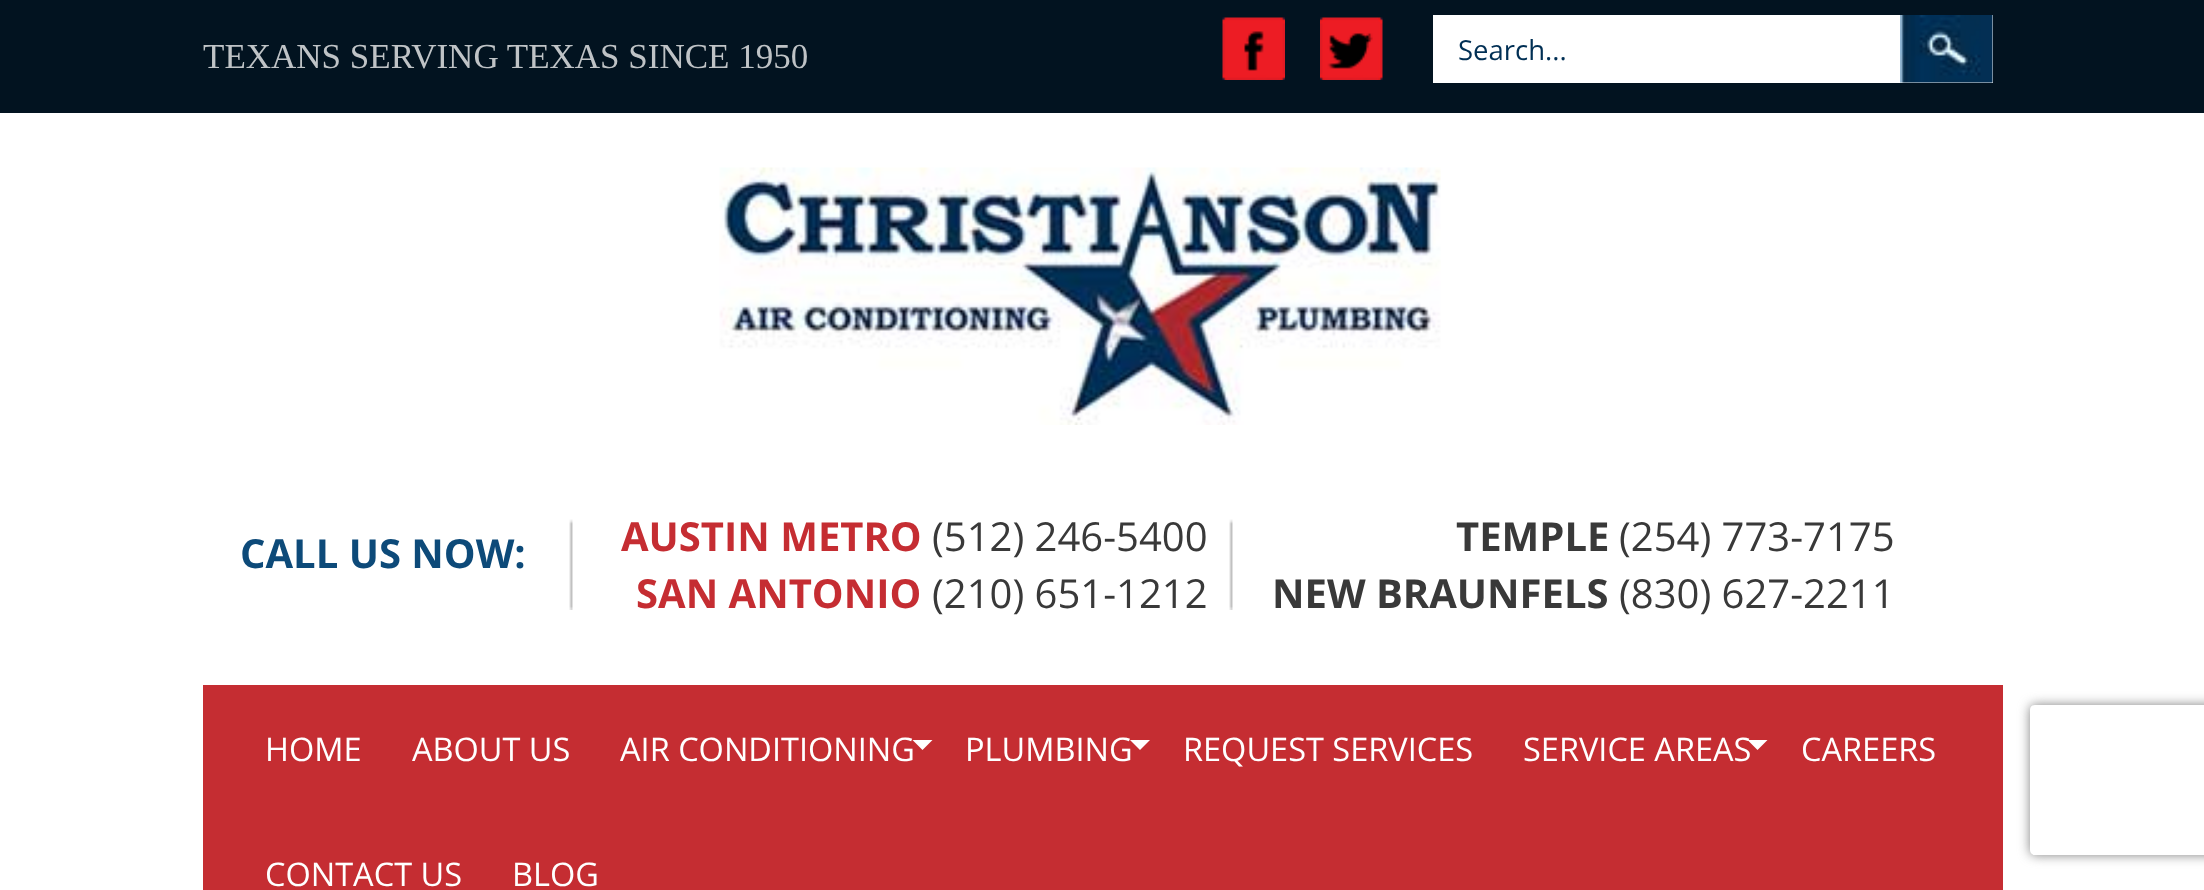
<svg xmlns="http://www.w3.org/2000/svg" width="2204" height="890">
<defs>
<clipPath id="clip1"><path d="M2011 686h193v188h-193zm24 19h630c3 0 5 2 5 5v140c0 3-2 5-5 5h-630c-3 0-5-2-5-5v-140c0-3 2-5 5-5z" clip-rule="evenodd"/></clipPath>
</defs>
<rect width="100%" height="100%" fill="#fff"/>
<rect width="2204" height="113" fill="#021320"/>
<text x="203" y="68" style="font-family:Liberation Serif;font-size:35px;fill:#bfc3c6">TEXANS SERVING TEXAS SINCE 1950</text>
<image x="1222" y="17" width="63" height="63" href="media/1.png"/>
<image x="1320" y="17" width="63" height="63" href="media/2.png"/>
<rect x="1433" y="15" width="467" height="68" fill="#fff"/>
<text x="1458" y="60" style="font-family:Open Sans;font-size:27.5px;fill:#002f54">Search...</text>
<rect x="1900" y="15" width="93" height="68" fill="#efefef"/>
<image x="1900" y="15" width="93" height="68" href="media/3.png"/>
<image x="719" y="167" width="722" height="258" href="media/4.png"/>
<image x="569" y="519" width="4" height="91" href="media/5.png"/>
<text x="240" y="568" style="font-family:Open Sans;font-size:40px;font-weight:bold;fill:#0d4a79">CALL US NOW:</text>
<image x="1229" y="519" width="4" height="91" href="media/5.png"/>
<text x="621" y="551" style="font-family:Open Sans;font-size:40px;font-weight:bold;fill:#c52d32">AUSTIN METRO</text>
<text x="932" y="551" style="font-family:Open Sans;font-size:40px;fill:#393939">(512) 246-5400</text>
<text x="636" y="608" style="font-family:Open Sans;font-size:40px;font-weight:bold;fill:#c52d32">SAN ANTONIO</text>
<text x="932" y="608" style="font-family:Open Sans;font-size:40px;fill:#393939">(210) 651-1212</text>
<text x="1456" y="551" style="font-family:Open Sans;font-size:40px;font-weight:bold;fill:#393939">TEMPLE</text>
<text x="1619" y="551" style="font-family:Open Sans;font-size:40px;fill:#393939">(254) 773-7175</text>
<text x="1272" y="608" style="font-family:Open Sans;font-size:40px;font-weight:bold;fill:#393939">NEW BRAUNFELS</text>
<text x="1619" y="608" style="font-family:Open Sans;font-size:40px;fill:#393939">(830) 627-2211</text>
<rect x="203" y="685" width="1800" height="205" fill="#c52d32"/>
<text x="265" y="761" style="font-family:Open Sans;font-size:32.5px;fill:#fff">HOME</text>
<text x="412" y="761" style="font-family:Open Sans;font-size:32.5px;fill:#fff">ABOUT US</text>
<text x="620" y="761" style="font-family:Open Sans;font-size:32.5px;fill:#fff">AIR CONDITIONING</text>
<path d="M912.5 740h20l-10 10z" fill="#fff"/>
<text x="965" y="761" style="font-family:Open Sans;font-size:32.5px;fill:#fff">PLUMBING</text>
<path d="M1130 740h20l-10 10z" fill="#fff"/>
<text x="1183" y="761" style="font-family:Open Sans;font-size:32.5px;fill:#fff">REQUEST SERVICES</text>
<text x="1523" y="761" style="font-family:Open Sans;font-size:32.5px;fill:#fff">SERVICE AREAS</text>
<path d="M1747.5 740h20l-10 10z" fill="#fff"/>
<text x="1801" y="761" style="font-family:Open Sans;font-size:32.5px;fill:#fff">CAREERS</text>
<text x="265" y="886" style="font-family:Open Sans;font-size:32.5px;fill:#fff">CONTACT US</text>
<text x="512" y="886" style="font-family:Open Sans;font-size:32.5px;fill:#fff">BLOG</text>
<g clip-path="url(#clip1)">
<rect x="2030" y="705" width="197" height="150" rx="5" fill="#808080" filter="blur(6px)"/>
</g>
</svg>
